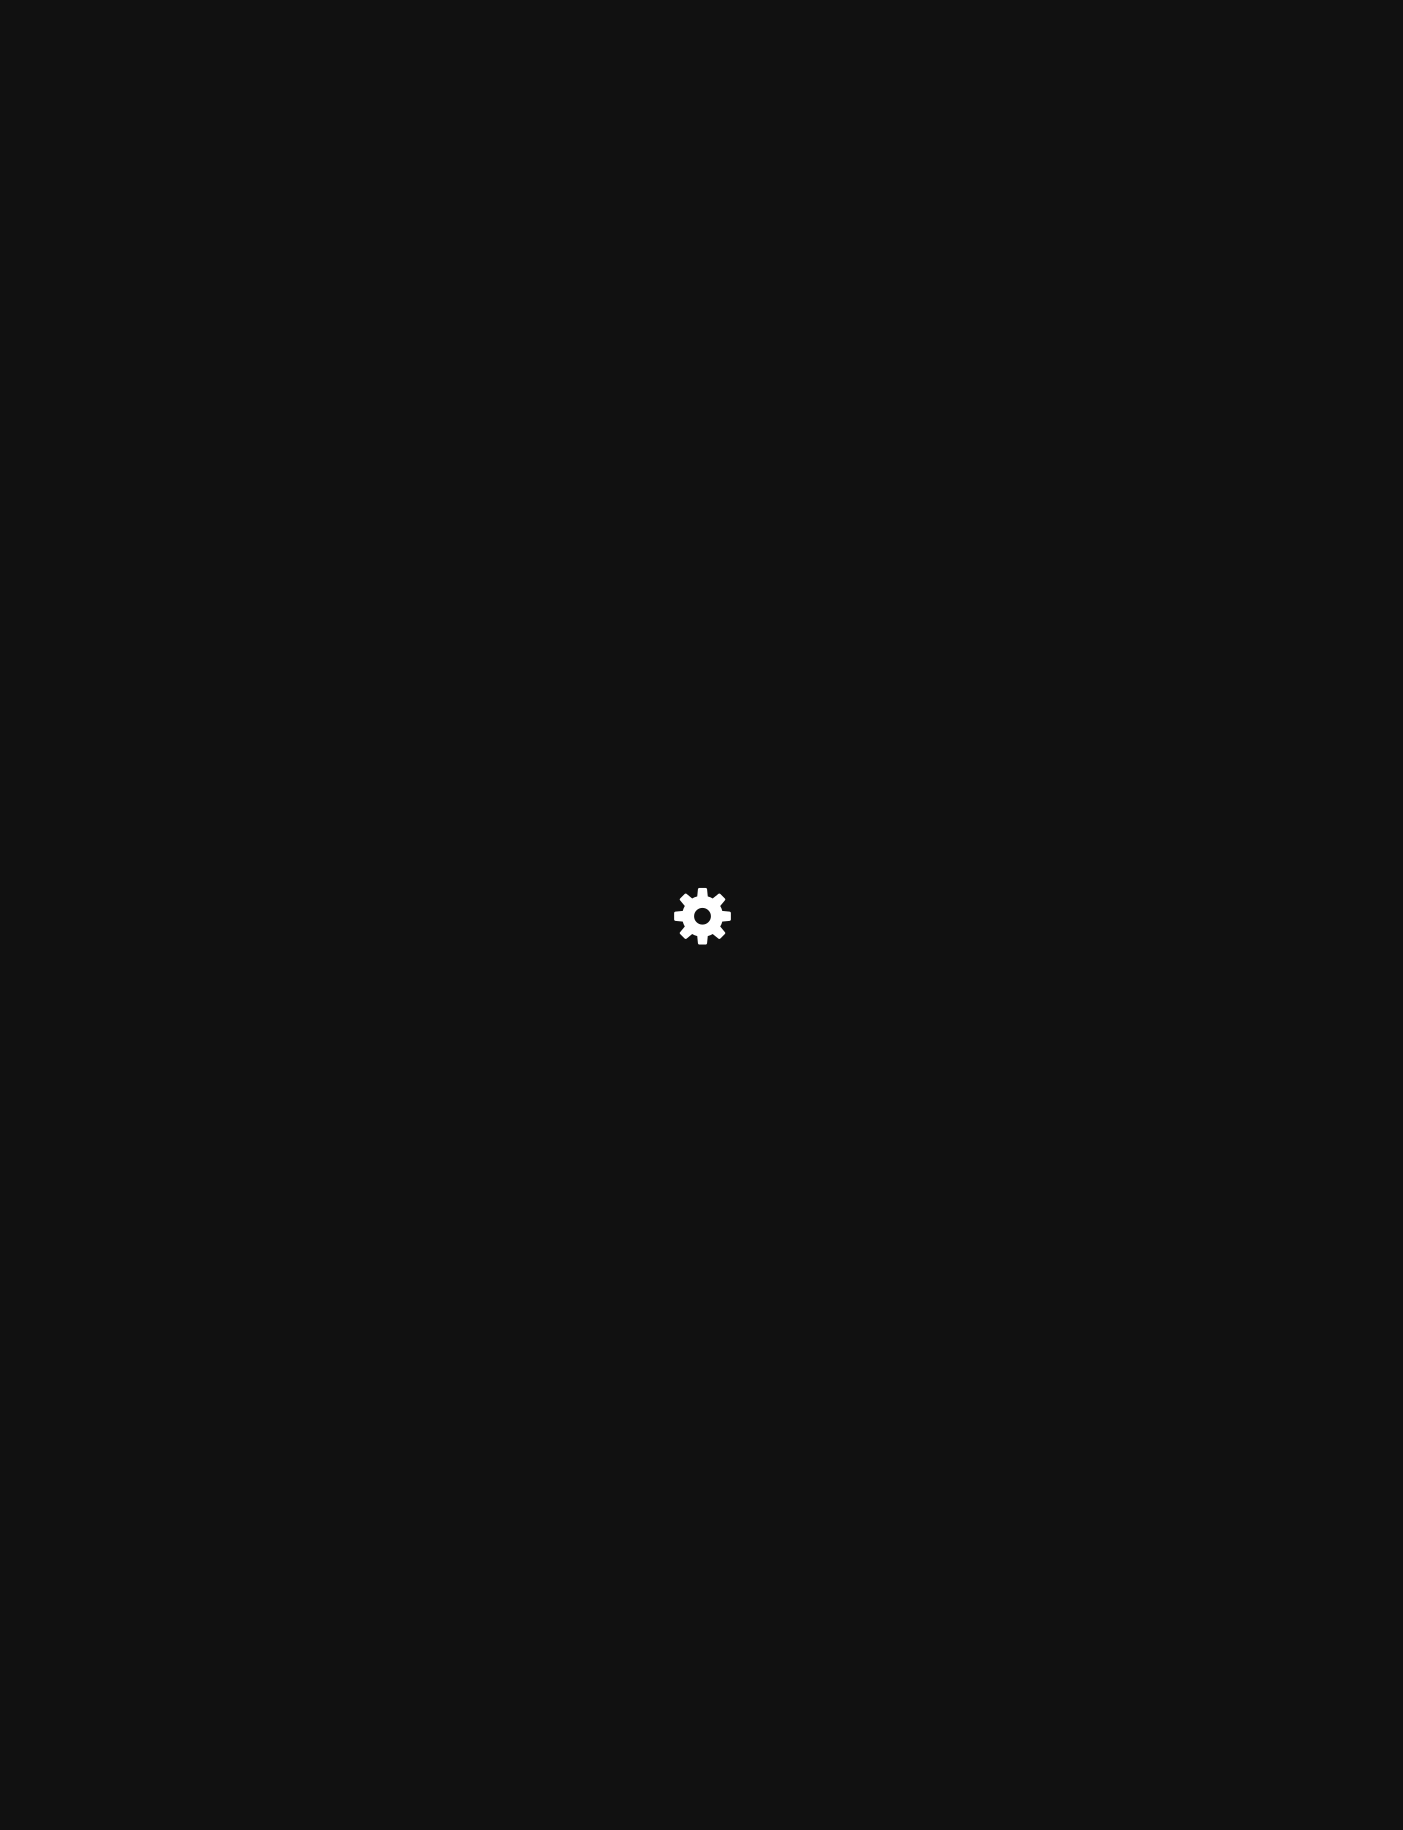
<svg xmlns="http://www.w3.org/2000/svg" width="1403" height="1830">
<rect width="100%" height="100%" fill="#111"/>
<image x="674" y="887" width="57" height="58" href="media/1.png"/>
</svg>
